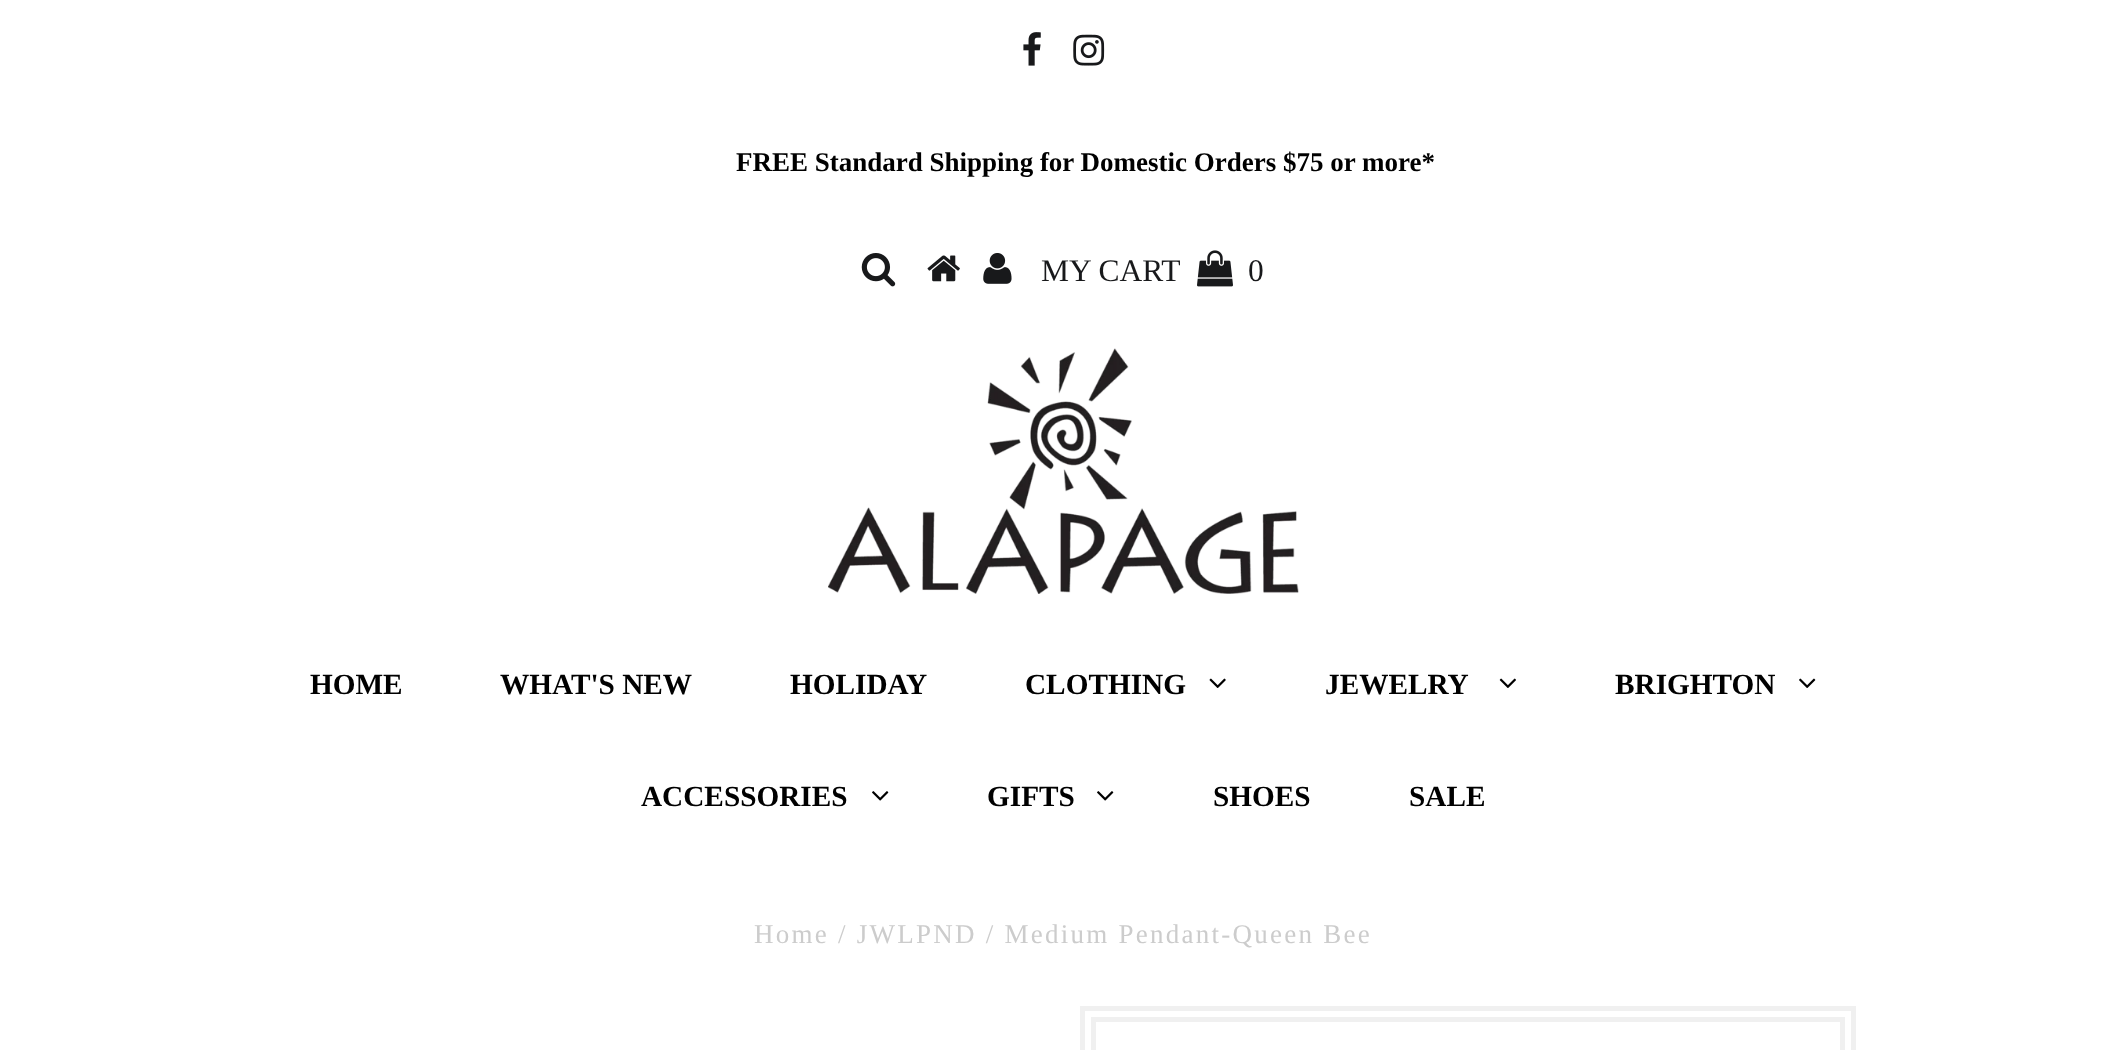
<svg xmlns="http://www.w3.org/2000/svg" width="2126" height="1050">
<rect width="100%" height="100%" fill="#fff"/>
<image x="1023" y="32" width="18" height="34" href="media/1.png"/>
<image x="1073" y="34" width="32" height="32" href="media/2.png"/>
<text x="736" y="171" style="font-family:Liberation Serif;font-size:27px;font-weight:bold;fill:#000">FREE Standard Shipping for Domestic Orders $75 or more*</text>
<image x="861" y="253" width="35" height="34" href="media/3.png"/>
<image x="927" y="255" width="33" height="27" href="media/4.png"/>
<image x="983" y="253" width="29" height="31" href="media/5.png"/>
<text x="1041" y="281" style="font-family:Liberation Serif;font-size:31.5px;fill:#18191b">MY CART</text>
<image x="1197" y="250" width="36" height="37" href="media/6.png"/>
<text x="1248" y="281" style="font-family:Liberation Serif;font-size:31.5px;fill:#18191b">0</text>
<image x="828" y="348" width="471" height="246" href="media/7.png"/>
<text x="310" y="694" style="font-family:Liberation Serif;font-size:29.25px;font-weight:bold;fill:#000">HOME</text>
<text x="500" y="694" style="font-family:Liberation Serif;font-size:29.25px;font-weight:bold;fill:#000">WHAT'S NEW</text>
<text x="790" y="694" style="font-family:Liberation Serif;font-size:29.25px;font-weight:bold;fill:#000">HOLIDAY</text>
<text x="1025" y="694" style="font-family:Liberation Serif;font-size:29.25px;font-weight:bold;fill:#000">CLOTHING</text>
<image x="1209" y="678" width="17" height="10" href="media/8.png"/>
<text x="1325" y="694" style="font-family:Liberation Serif;font-size:29.25px;font-weight:bold;fill:#000">JEWELRY</text>
<image x="1499" y="678" width="17" height="10" href="media/9.png"/>
<text x="1615" y="694" style="font-family:Liberation Serif;font-size:29.25px;font-weight:bold;fill:#000">BRIGHTON</text>
<image x="1799" y="678" width="17" height="10" href="media/10.png"/>
<text x="641" y="806" style="font-family:Liberation Serif;font-size:29.25px;font-weight:bold;fill:#000">ACCESSORIES</text>
<image x="872" y="791" width="17" height="10" href="media/11.png"/>
<text x="987" y="806" style="font-family:Liberation Serif;font-size:29.25px;font-weight:bold;fill:#000">GIFTS</text>
<image x="1097" y="791" width="17" height="10" href="media/11.png"/>
<text x="1213" y="806" style="font-family:Liberation Serif;font-size:29.25px;font-weight:bold;fill:#000">SHOES</text>
<text x="1409" y="806" style="font-family:Liberation Serif;font-size:29.25px;font-weight:bold;fill:#000">SALE</text>
<text x="754" y="943" style="font-family:Liberation Serif;font-size:27px;letter-spacing:2.25px;fill:#ccc">Home / JWLPND / Medium Pendant-Queen Bee</text>
<rect x="1082.5" y="1008.5" width="771" height="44" fill="none" stroke="#f0f0f0" stroke-width="5"/>
<rect x="1093.5" y="1019.5" width="749" height="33" fill="none" stroke="#f0f0f0" stroke-width="5"/>
</svg>
